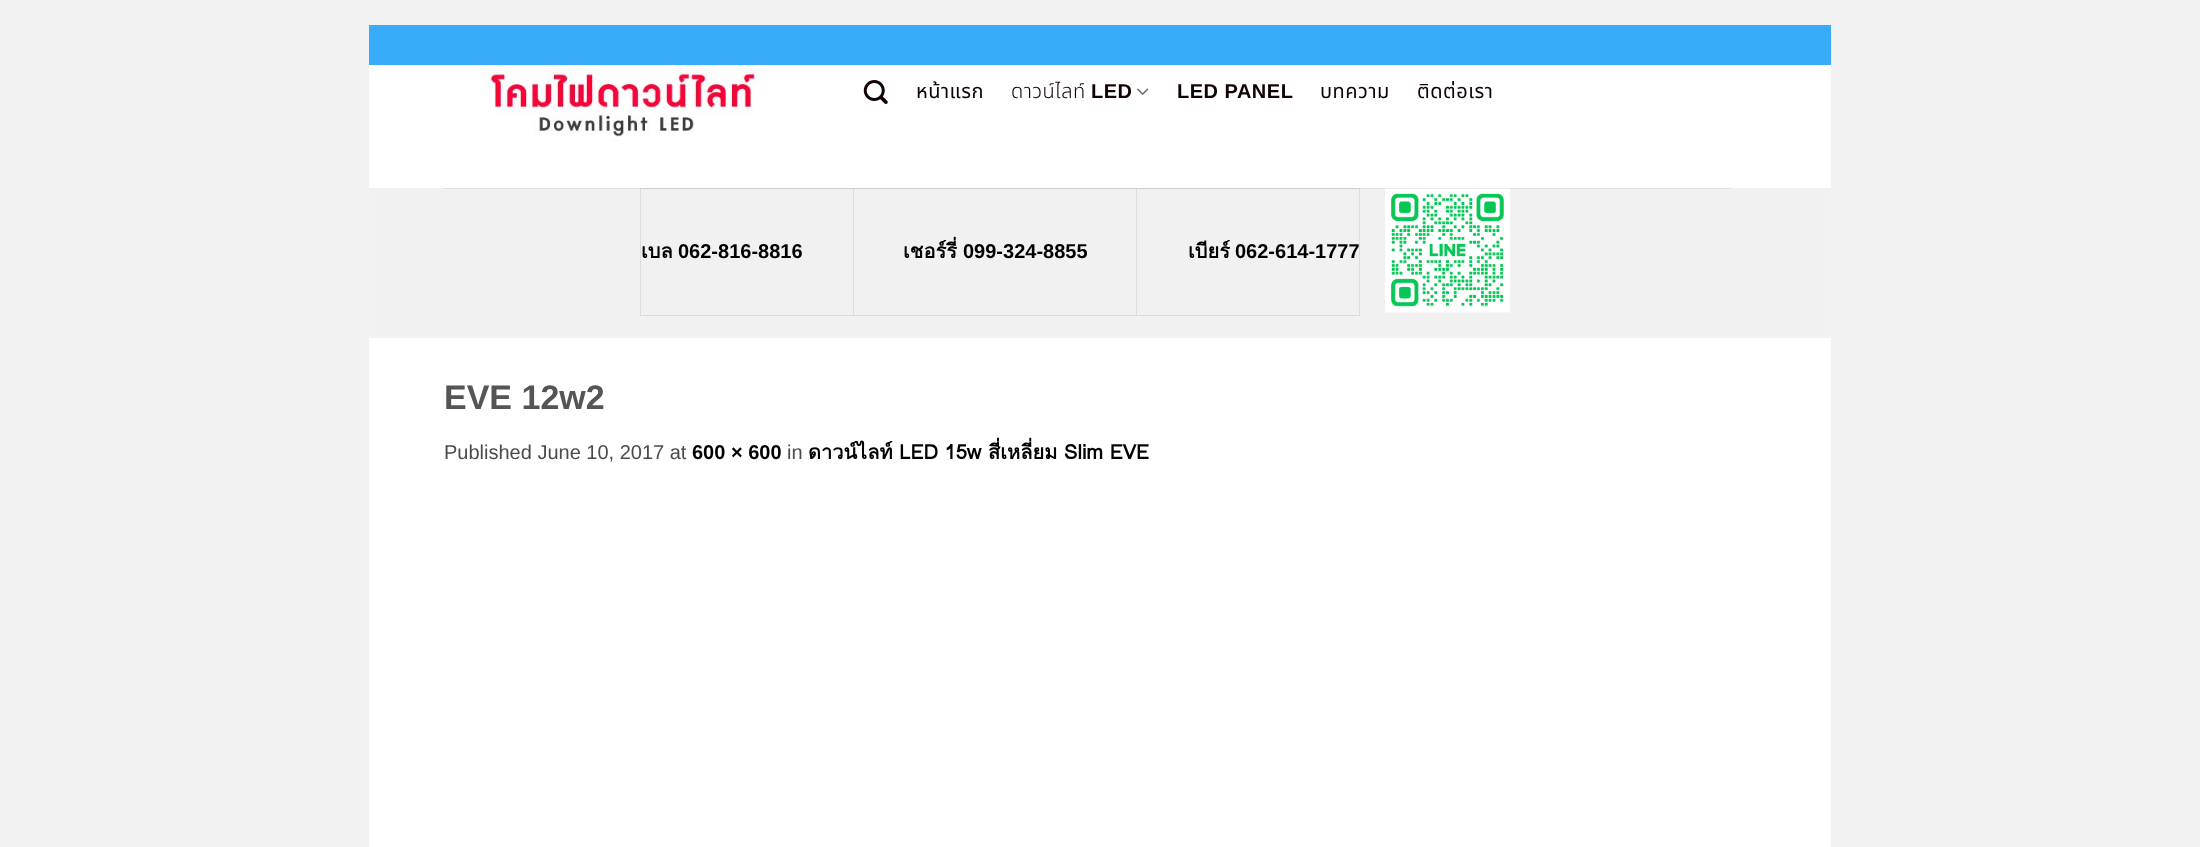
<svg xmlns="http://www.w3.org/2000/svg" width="2200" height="847">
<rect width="100%" height="100%" fill="#f2f2f2"/>
<rect x="369" y="65" width="1462" height="782" fill="#fff"/>
<rect x="369" y="25" width="1462" height="40" fill="#39acf9"/>
<image x="483" y="65" width="283" height="77" href="media/1.png"/>
<image x="863" y="80" width="25" height="24" href="media/2.png"/>
<text x="916" y="98" style="font-family:Noto Sans Thai;font-size:20px;letter-spacing:0.5px;fill:#120202">หน้าแรก</text>
<text x="1011" y="98" style="font-family:Noto Sans Thai;font-size:20px;font-weight:300;letter-spacing:0.5px;fill:#120202">ดาวน์ไลท์</text>
<text x="1091" y="98" style="font-family:Liberation Sans;font-size:20px;font-weight:bold;letter-spacing:0.5px;fill:#120202">LED</text>
<image x="1137" y="88" width="12" height="7" href="media/3.png"/>
<text x="1177" y="98" style="font-family:Liberation Sans;font-size:20px;font-weight:bold;letter-spacing:0.5px;fill:#120202">LED PANEL</text>
<text x="1320" y="98" style="font-family:Noto Sans Thai;font-size:20px;letter-spacing:0.5px;fill:#120202">บทความ</text>
<text x="1417" y="98" style="font-family:Noto Sans Thai;font-size:20px;letter-spacing:0.5px;fill:#120202">ติดต่อเรา</text>
<rect x="369" y="188" width="1462" height="150" fill="#f1f1f1"/>
<rect x="1136" y="188" width="224" height="1" fill="#ddd"/>
<rect x="1359" y="188" width="1" height="128" fill="#ddd"/>
<rect x="1136" y="315" width="224" height="1" fill="#ddd"/>
<rect x="1136" y="188" width="1" height="128" fill="#ddd"/>
<rect x="853" y="188" width="285" height="1" fill="#ddd"/>
<rect x="853" y="315" width="285" height="1" fill="#ddd"/>
<rect x="853" y="188" width="1" height="128" fill="#ddd"/>
<rect x="640" y="188" width="214" height="1" fill="#ddd"/>
<rect x="640" y="315" width="214" height="1" fill="#ddd"/>
<rect x="640" y="188" width="1" height="128" fill="#ddd"/>
<image x="1385" y="188" width="125" height="125" href="media/4.png"/>
<rect x="444" y="188" width="1287" height="1" fill="#4a4a4a1a"/>
<text x="641" y="258" style="font-family:Loma;font-size:20px;font-weight:bold;fill:#000">เบล</text>
<text x="678" y="258" style="font-family:Liberation Sans;font-size:20px;font-weight:bold;fill:#000">062-816-8816</text>
<text x="903" y="258" style="font-family:Loma;font-size:20px;font-weight:bold;fill:#000">เชอร์รี่</text>
<text x="963" y="258" style="font-family:Liberation Sans;font-size:20px;font-weight:bold;fill:#000">099-324-8855</text>
<text x="1188" y="258" style="font-family:Loma;font-size:20px;font-weight:bold;fill:#000">เบียร์</text>
<text x="1235" y="258" style="font-family:Liberation Sans;font-size:20px;font-weight:bold;fill:#000">062-614-1777</text>
<text x="444" y="409" style="font-family:Liberation Sans;font-size:34px;font-weight:bold;fill:#555">EVE 12w2</text>
<text x="444" y="459" style="font-family:Liberation Sans;font-size:20px;fill:#4a4a4a">Published June 10, 2017 at</text>
<text x="692" y="459" style="font-family:Liberation Sans;font-size:20px;font-weight:bold;fill:#000">600 × 600</text>
<text x="787" y="459" style="font-family:Liberation Sans;font-size:20px;fill:#4a4a4a">in</text>
<text x="808" y="459" style="font-family:Loma;font-size:20px;font-weight:bold;fill:#000">ดาวน์ไลท์ LED 15w สี่เหลี่ยม Slim EVE</text>
</svg>
